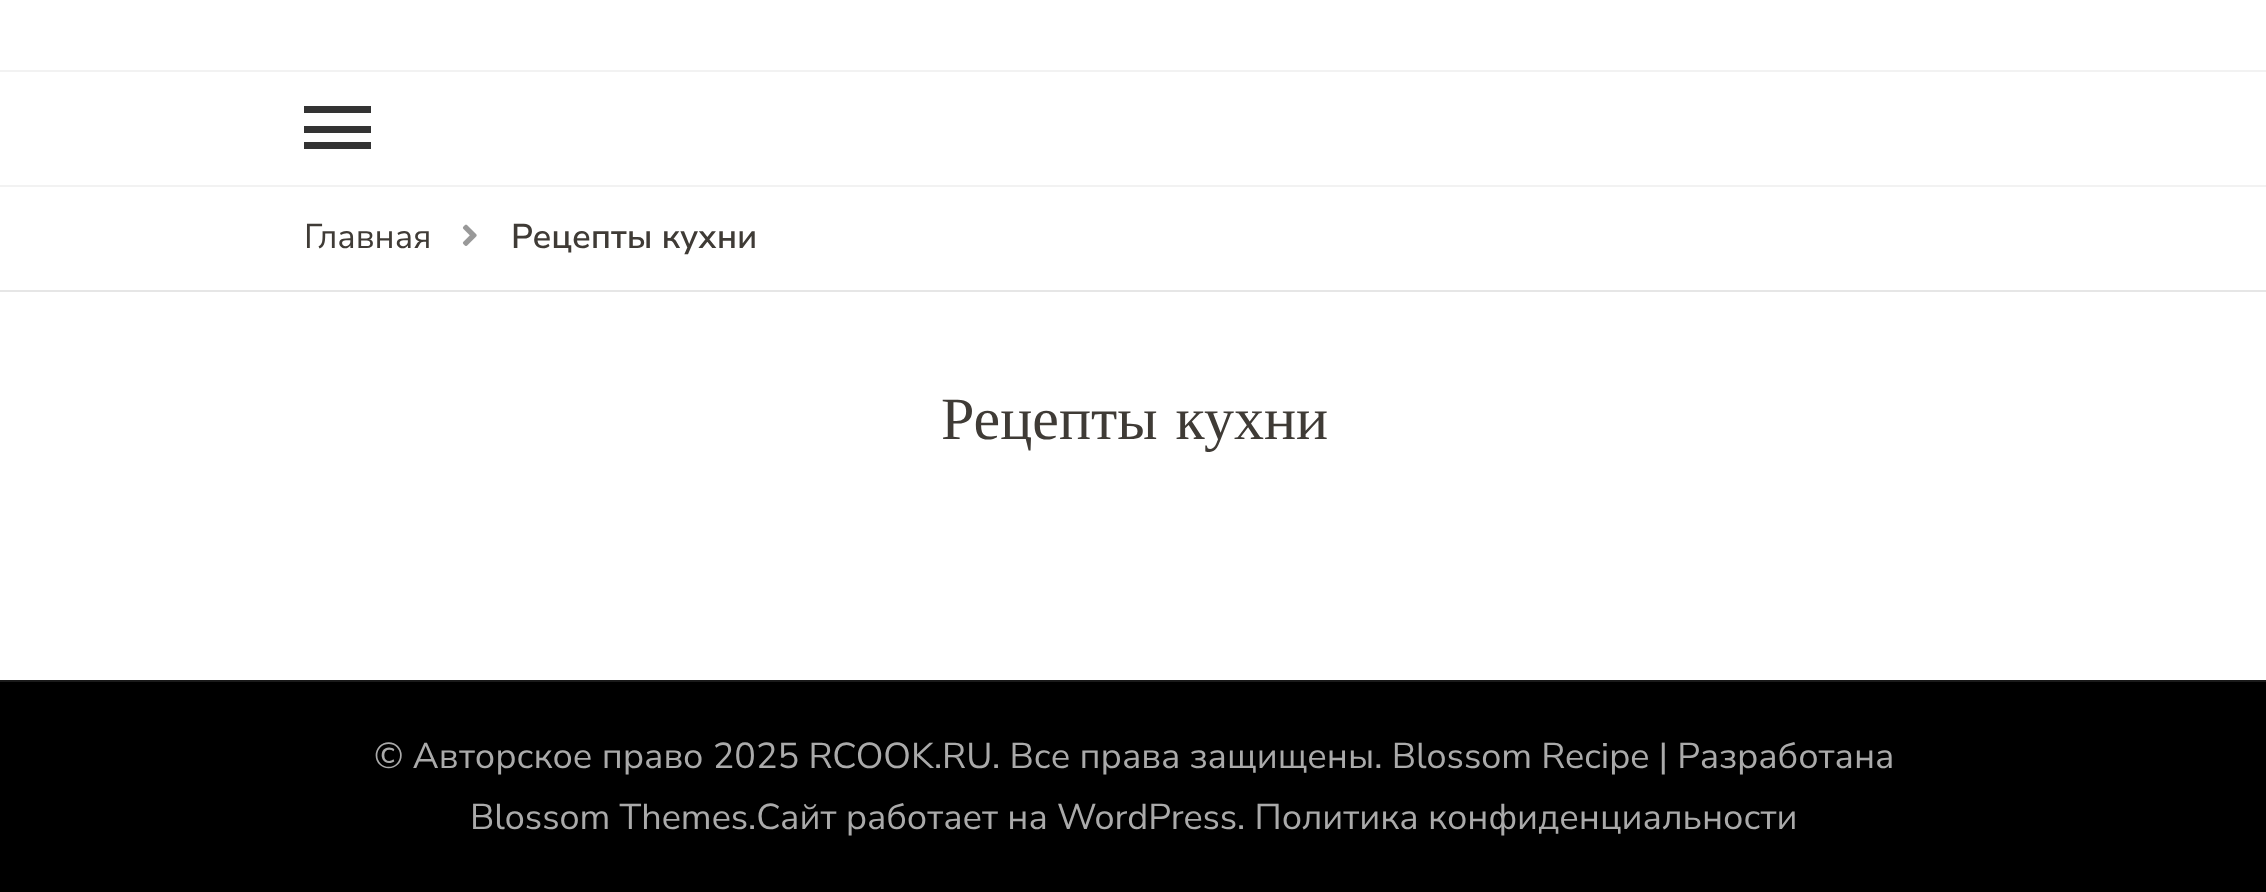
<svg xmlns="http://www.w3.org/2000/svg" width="2266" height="892">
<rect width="100%" height="100%" fill="#fff"/>
<rect y="185" width="2266" height="2" fill="#f2f2f2"/>
<rect y="70" width="2266" height="2" fill="#f2f2f2"/>
<rect x="304" y="106" width="67" height="7" fill="#333"/>
<rect x="304" y="126" width="67" height="7" fill="#333"/>
<rect x="304" y="142" width="67" height="7" fill="#333"/>
<rect y="290" width="2266" height="2" fill="#e6e6e6"/>
<text x="304" y="248" style="font-family:Nunito Sans;font-size:34.25px;fill:#3f3b36">Главная</text>
<image x="462" y="224" width="15" height="22" href="media/1.png"/>
<text x="511" y="248" style="font-family:Nunito Sans;font-size:34.25px;font-weight:600;fill:#3f3b36">Рецепты кухни</text>
<text x="941" y="439" word-spacing="3" style="font-family:Liberation Serif;font-size:60px;fill:#3f3b36">Рецепты кухни</text>
<rect y="682" width="2266" height="210" fill="#000"/>
<rect y="680" width="2266" height="2" fill="#1a1a1a"/>
<text x="374" y="768" style="font-family:Nunito Sans;font-size:36px;fill:#aaa">© Авторское право 2025 RCOOK.RU</text>
<text x="992" y="768" style="font-family:Nunito Sans;font-size:36px;fill:#aaa">. Все права защищены. Blossom Recipe | Разработана</text>
<text x="470" y="829" style="font-family:Nunito Sans;font-size:36px;fill:#aaa">Blossom Themes.Сайт работает на WordPress. Политика конфиденциальности</text>
</svg>
